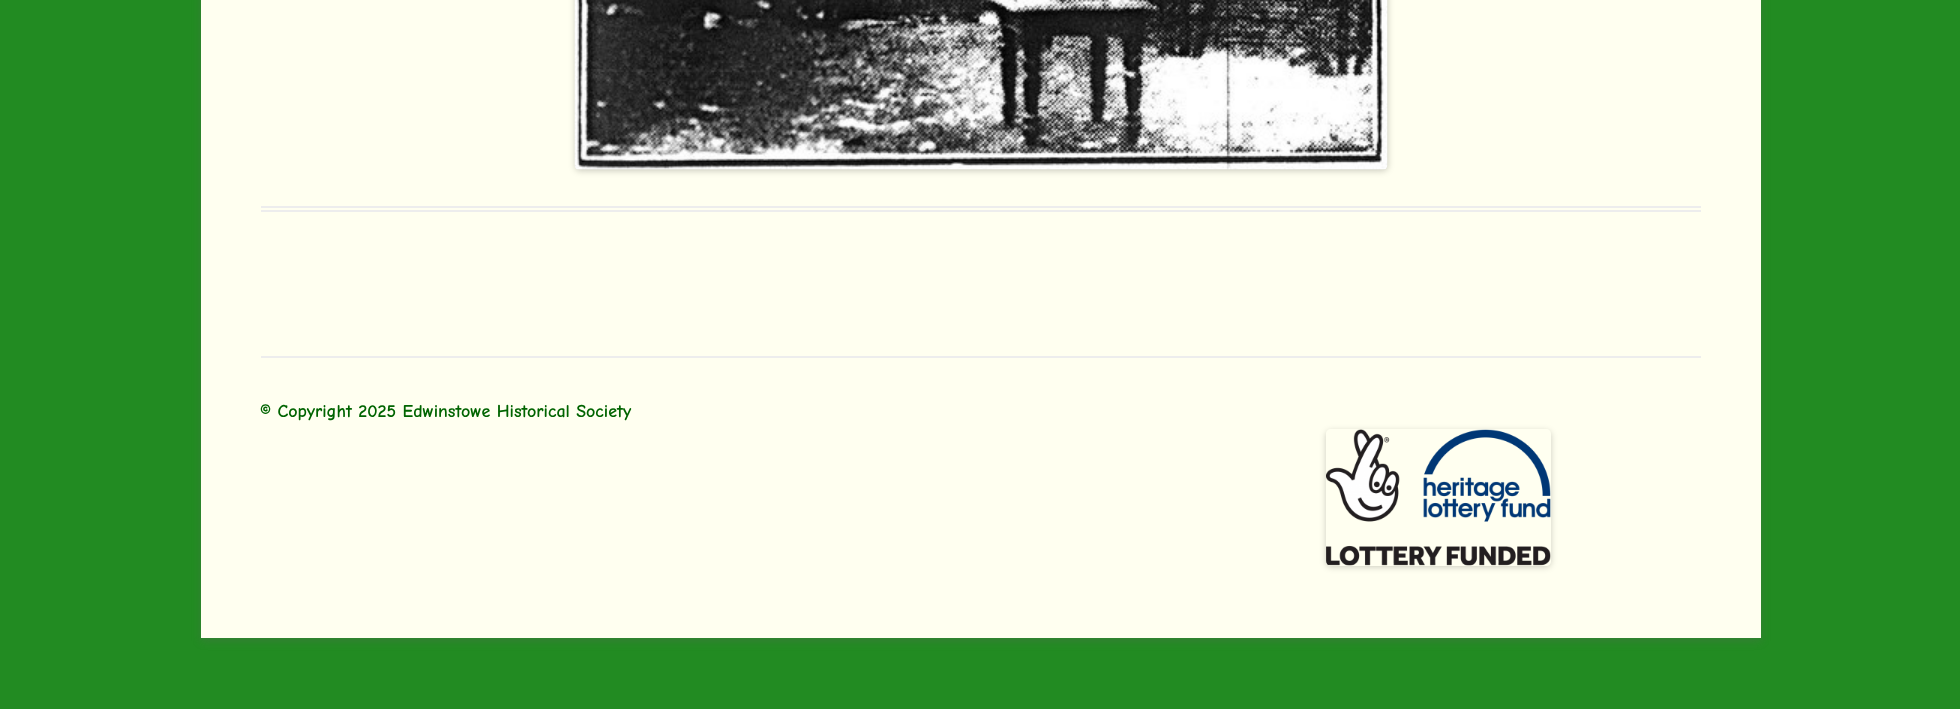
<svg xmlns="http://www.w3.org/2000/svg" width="1960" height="709">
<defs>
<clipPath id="clip1"><path d="M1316 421h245v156h-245zm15 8h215c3 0 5 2 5 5v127c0 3-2 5-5 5h-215c-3 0-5-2-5-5v-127c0-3 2-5 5-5z" clip-rule="evenodd"/></clipPath>
</defs>
<rect width="100%" height="100%" fill="#228b22"/>
<rect x="201" y="-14" width="1560" height="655" fill="#6464644d" filter="blur(4.5px)"/>
<rect x="201" width="1560" height="638" fill="#fffff0"/>
<rect x="261" y="206" width="1440" height="2" fill="#ededed"/>
<rect x="261" y="210" width="1440" height="2" fill="#ededed"/>
<rect x="575" y="-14" width="813" height="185" rx="5" fill="#00000033" filter="blur(3px)"/>
<image x="574" y="0" width="814" height="170" href="media/1.png"/>
<rect x="261" y="356" width="1440" height="2" fill="#ededed"/>
<text x="260" y="417" style="font-family:Comic Neue;font-size:18px;font-weight:bold;fill:#006400">© Copyright 2025 Edwinstowe Historical Society</text>
<g clip-path="url(#clip1)">
<rect x="1326" y="431" width="225" height="136" rx="5" fill="#00000033" filter="blur(3px)"/>
</g>
<image x="1326" y="429" width="225" height="137" href="media/2.png"/>
</svg>
